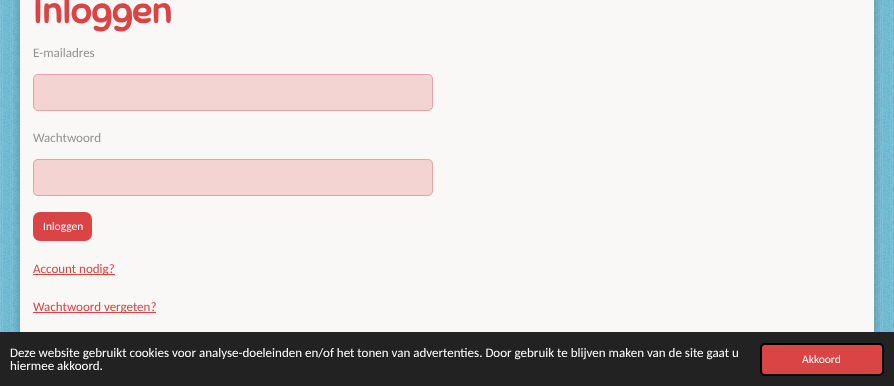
<svg xmlns="http://www.w3.org/2000/svg" width="894" height="386">
<rect width="100%" height="100%" fill="#73bdd5"/>
<image x="0" y="0" width="894" height="332" href="media/1.png"/>
<rect x="20" y="-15" width="854" height="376" fill="#00000033" filter="blur(5px)"/>
<rect x="20" width="854" height="332" fill="#f9f8f6"/>
<text x="33" y="23" style="font-family:Sniglet;font-size:36.5px;font-weight:bold;fill:#da4444">Inloggen</text>
<text x="33" y="57" style="font-family:Carlito;font-size:13px;fill:#929292">E-mailadres</text>
<rect x="33" y="74" width="400" height="37" rx="5" fill="#f3d4d2"/>
<rect x="33.5" y="74.5" width="399" height="36" rx="4.5" fill="none" stroke="#e2717180"/>
<text x="33" y="142" style="font-family:Carlito;font-size:13px;fill:#929292">Wachtwoord</text>
<rect x="33" y="159" width="400" height="37" rx="5" fill="#f3d4d2"/>
<rect x="33.5" y="159.5" width="399" height="36" rx="4.5" fill="none" stroke="#e2717180"/>
<rect x="33" y="212" width="59" height="29" rx="7" fill="#da4444"/>
<text x="43" y="230" style="font-family:Carlito;font-size:11.5px;fill:#fff">Inloggen</text>
<rect x="33" y="274" width="82" height="1" fill="#da4444"/>
<text x="33" y="273" style="font-family:Carlito;font-size:13px;fill:#da4444">Account nodig?</text>
<rect x="33" y="312" width="123" height="1" fill="#da4444"/>
<text x="33" y="311" style="font-family:Carlito;font-size:13px;fill:#da4444">Wachtwoord vergeten?</text>
<rect y="332" width="894" height="54" fill="#222"/>
<text x="10" y="357" style="font-family:Carlito;font-size:13px;fill:#fff">Deze website gebruikt cookies voor analyse-doeleinden en/of het tonen van advertenties. Door gebruik te blijven maken van de site gaat u</text>
<text x="10" y="370" style="font-family:Carlito;font-size:13px;fill:#fff">hiermee akkoord.</text>
<rect x="761" y="344" width="122" height="31" rx="4" fill="#da4444" stroke="#000" stroke-width="2"/>
<text x="802" y="363" style="font-family:Carlito;font-size:11.5px;fill:#fff">Akkoord</text>
</svg>
